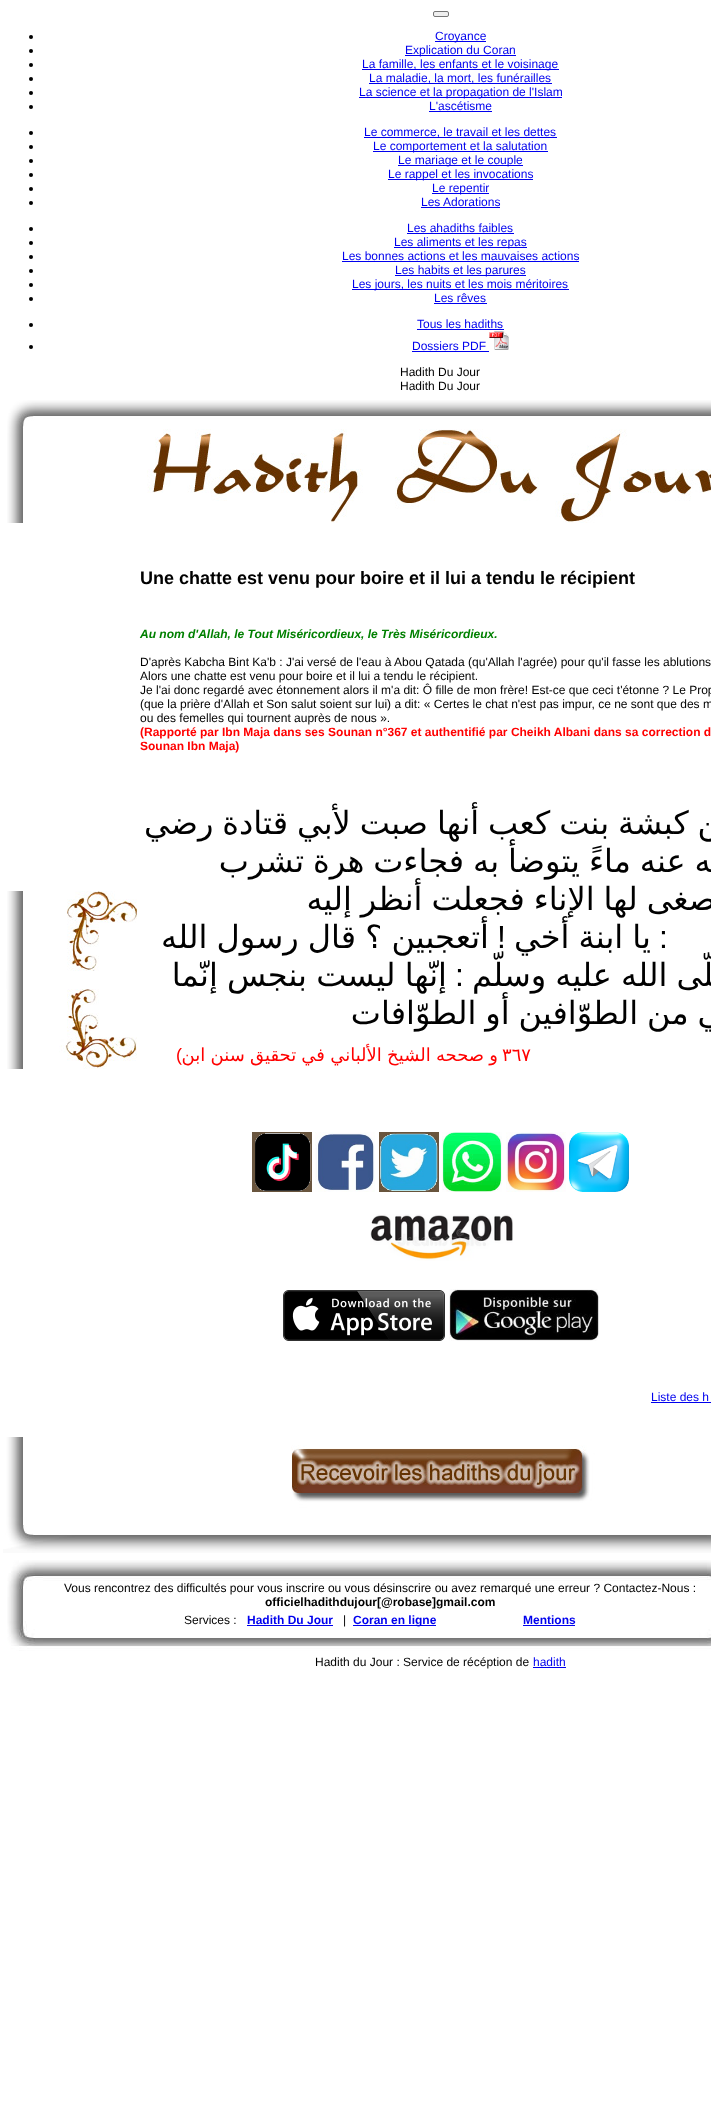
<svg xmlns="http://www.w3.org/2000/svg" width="711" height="2119">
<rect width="100%" height="100%" fill="#fff"/>
<rect x="433.5" y="11.5" width="15" height="5" rx="1.5" fill="#efefef" stroke="#767676"/>
<circle cx="31" cy="37" r="2" fill="#000"/>
<rect x="435" y="41" width="51" height="1" fill="#00e"/>
<text x="435" y="40" style="font-family:Liberation Sans;font-size:12px;fill:#00e">Croyance</text>
<circle cx="31" cy="51" r="2" fill="#000"/>
<rect x="405" y="55" width="111" height="1" fill="#00e"/>
<text x="405" y="54" style="font-family:Liberation Sans;font-size:12px;fill:#00e">Explication du Coran</text>
<circle cx="31" cy="65" r="2" fill="#000"/>
<rect x="362" y="69" width="197" height="1" fill="#00e"/>
<text x="362" y="68" style="font-family:Liberation Sans;font-size:12px;fill:#00e">La famille, les enfants et le voisinage</text>
<circle cx="31" cy="79" r="2" fill="#000"/>
<rect x="369" y="83" width="183" height="1" fill="#00e"/>
<text x="369" y="82" style="font-family:Liberation Sans;font-size:12px;fill:#00e">La maladie, la mort, les funérailles</text>
<circle cx="31" cy="93" r="2" fill="#000"/>
<rect x="359" y="97" width="203" height="1" fill="#00e"/>
<text x="359" y="96" style="font-family:Liberation Sans;font-size:12px;fill:#00e">La science et la propagation de l'Islam</text>
<circle cx="31" cy="107" r="2" fill="#000"/>
<text x="429" y="110" style="font-family:Liberation Sans;font-size:12px;fill:#00e">L'ascétisme</text>
<rect x="429" y="111" width="63" height="1" fill="#00e"/>
<circle cx="31" cy="133" r="2" fill="#000"/>
<rect x="364" y="137" width="193" height="1" fill="#00e"/>
<text x="364" y="136" style="font-family:Liberation Sans;font-size:12px;fill:#00e">Le commerce, le travail et les dettes</text>
<circle cx="31" cy="147" r="2" fill="#000"/>
<rect x="373" y="151" width="175" height="1" fill="#00e"/>
<text x="373" y="150" style="font-family:Liberation Sans;font-size:12px;fill:#00e">Le comportement et la salutation</text>
<circle cx="31" cy="161" r="2" fill="#000"/>
<rect x="398" y="165" width="125" height="1" fill="#00e"/>
<text x="398" y="164" style="font-family:Liberation Sans;font-size:12px;fill:#00e">Le mariage et le couple</text>
<circle cx="31" cy="175" r="2" fill="#000"/>
<rect x="388" y="179" width="145" height="1" fill="#00e"/>
<text x="388" y="178" style="font-family:Liberation Sans;font-size:12px;fill:#00e">Le rappel et les invocations</text>
<circle cx="31" cy="189" r="2" fill="#000"/>
<rect x="432" y="193" width="57" height="1" fill="#00e"/>
<text x="432" y="192" style="font-family:Liberation Sans;font-size:12px;fill:#00e">Le repentir</text>
<circle cx="31" cy="203" r="2" fill="#000"/>
<text x="421" y="206" style="font-family:Liberation Sans;font-size:12px;fill:#00e">Les Adorations</text>
<rect x="421" y="207" width="79" height="1" fill="#00e"/>
<circle cx="31" cy="229" r="2" fill="#000"/>
<text x="407" y="232" style="font-family:Liberation Sans;font-size:12px;fill:#00e">Les ahadiths faibles</text>
<rect x="407" y="233" width="107" height="1" fill="#00e"/>
<circle cx="31" cy="243" r="2" fill="#000"/>
<rect x="394" y="247" width="133" height="1" fill="#00e"/>
<text x="394" y="246" style="font-family:Liberation Sans;font-size:12px;fill:#00e">Les aliments et les repas</text>
<circle cx="31" cy="257" r="2" fill="#000"/>
<text x="342" y="260" style="font-family:Liberation Sans;font-size:12px;fill:#00e">Les bonnes actions et les mauvaises actions</text>
<rect x="342" y="261" width="237" height="1" fill="#00e"/>
<circle cx="31" cy="271" r="2" fill="#000"/>
<rect x="395" y="275" width="131" height="1" fill="#00e"/>
<text x="395" y="274" style="font-family:Liberation Sans;font-size:12px;fill:#00e">Les habits et les parures</text>
<circle cx="31" cy="285" r="2" fill="#000"/>
<rect x="352" y="289" width="217" height="1" fill="#00e"/>
<text x="352" y="288" style="font-family:Liberation Sans;font-size:12px;fill:#00e">Les jours, les nuits et les mois méritoires</text>
<circle cx="31" cy="299" r="2" fill="#000"/>
<text x="434" y="302" style="font-family:Liberation Sans;font-size:12px;fill:#00e">Les rêves</text>
<rect x="434" y="303" width="53" height="1" fill="#00e"/>
<circle cx="31" cy="325" r="2" fill="#000"/>
<text x="417" y="328" style="font-family:Liberation Sans;font-size:12px;fill:#00e">Tous les hadiths</text>
<rect x="417" y="329" width="87" height="1" fill="#00e"/>
<circle cx="31" cy="347" r="2" fill="#000"/>
<text x="412" y="350" style="font-family:Liberation Sans;font-size:12px;fill:#00e">Dossiers PDF</text>
<rect x="412" y="351" width="77" height="1" fill="#00e"/>
<image x="489" y="331" width="20" height="19" href="media/1.png"/>
<text x="400" y="376" style="font-family:Liberation Sans;font-size:12px;fill:#000">Hadith Du Jour</text>
<text x="400" y="390" style="font-family:Liberation Sans;font-size:12px;fill:#000">Hadith Du Jour</text>
<image x="7" y="400" width="704" height="123" href="media/2.png"/>
<image x="7" y="891" width="130" height="80" href="media/3.png"/>
<image x="3" y="971" width="134" height="18" href="media/4.png"/>
<image x="7" y="989" width="130" height="80" href="media/5.png"/>
<text x="140" y="584" style="font-family:Liberation Sans;font-size:18px;font-weight:bold;fill:#000">Une chatte est venu pour boire et il lui a tendu le récipient</text>
<text x="140" y="638" style="font-family:Liberation Sans;font-size:12px;font-weight:bold;font-style:italic;fill:#008000">Au nom d'Allah, le Tout Miséricordieux, le Très Miséricordieux.</text>
<text x="140" y="666" style="font-family:Liberation Sans;font-size:12px;fill:#000">D'après Kabcha Bint Ka'b : J'ai versé de l'eau à Abou Qatada (qu'Allah l'agrée) pour qu'il fasse les ablutions</text>
<text x="140" y="680" style="font-family:Liberation Sans;font-size:12px;fill:#000">Alors une chatte est venu pour boire et il lui a tendu le récipient.</text>
<text x="140" y="694" style="font-family:Liberation Sans;font-size:12px;fill:#000">Je l'ai donc regardé avec étonnement alors il m'a dit: Ô fille de mon frère! Est-ce que ceci t'étonne ? Le Prop</text>
<text x="140" y="708" style="font-family:Liberation Sans;font-size:12px;fill:#000">(que la prière d'Allah et Son salut soient sur lui) a dit: « Certes le chat n'est pas impur, ce ne sont que des m</text>
<text x="140" y="722" style="font-family:Liberation Sans;font-size:12px;fill:#000">ou des femelles qui tournent auprès de nous ».</text>
<text x="140" y="736" style="font-family:Liberation Sans;font-size:12px;font-weight:bold;fill:#f00">(Rapporté par Ibn Maja dans ses Sounan n°367 et authentifié par Cheikh Albani dans sa correction d</text>
<text x="140" y="750" style="font-family:Liberation Sans;font-size:12px;font-weight:bold;fill:#f00">Sounan Ibn Maja)</text>
<text x="741" y="834" word-spacing="-1.25" style="font-family:DejaVu Sans;font-size:32px;direction:rtl;fill:#000">عن كبشة بنت كعب أنها صبت لأبي قتادة رضي</text>
<text x="741" y="872" word-spacing="-1.25" style="font-family:DejaVu Sans;font-size:32px;direction:rtl;fill:#000">الله عنه ماءً يتوضأ به فجاءت هرة تشرب</text>
<text x="741" y="910" word-spacing="-1.25" style="font-family:DejaVu Sans;font-size:32px;direction:rtl;fill:#000">فأصغى لها الإناء فجعلت أنظر إليه</text>
<text x="489" y="948" word-spacing="-1" style="font-family:DejaVu Sans;font-size:32px;direction:rtl;fill:#000">أتعجبين ؟ قال رسول الله</text>
<text x="506" y="948" style="font-family:Liberation Sans;font-size:32px;direction:rtl;fill:#000">!</text>
<text x="651" y="948" word-spacing="-1" style="font-family:DejaVu Sans;font-size:32px;direction:rtl;fill:#000">يا ابنة أخي</text>
<text x="668" y="948" style="font-family:Liberation Sans;font-size:32px;direction:rtl;fill:#000">:</text>
<text x="447" y="986" word-spacing="-1" style="font-family:DejaVu Sans;font-size:32px;direction:rtl;fill:#000">إنّها ليست بنجس إنّما</text>
<text x="464" y="986" style="font-family:Liberation Sans;font-size:32px;direction:rtl;fill:#000">:</text>
<text x="741" y="986" word-spacing="-1" style="font-family:DejaVu Sans;font-size:32px;direction:rtl;fill:#000">صلّى الله عليه وسلّم</text>
<text x="741" y="1024" word-spacing="-1.25" style="font-family:DejaVu Sans;font-size:32px;direction:rtl;fill:#000">هي من الطوّافين أو الطوّافات</text>
<text x="176" y="1061" style="font-family:Liberation Sans;font-size:18px;fill:#f00">(</text>
<text x="498" y="1061" word-spacing="-0.5" style="font-family:DejaVu Sans;font-size:18px;direction:rtl;fill:#f00">و صححه الشيخ الألباني في تحقيق سنن ابن</text>
<text x="502" y="1061" style="font-family:DejaVu Sans;font-size:18px;fill:#f00">٣٦٧</text>
<image x="252" y="1132" width="60" height="60" href="media/6.png"/>
<image x="315" y="1132" width="60" height="60" href="media/7.png"/>
<image x="379" y="1132" width="60" height="60" href="media/8.png"/>
<image x="442" y="1132" width="60" height="60" href="media/9.png"/>
<image x="506" y="1132" width="60" height="60" href="media/10.png"/>
<image x="569" y="1132" width="60" height="60" href="media/11.png"/>
<image x="370" y="1214" width="143" height="47" href="media/12.png"/>
<image x="283" y="1290" width="162" height="51" href="media/13.png"/>
<image x="449" y="1289" width="150" height="52" href="media/14.png"/>
<text x="651" y="1401" style="font-family:Liberation Sans;font-size:12px;fill:#00e">Liste des h</text>
<rect x="651" y="1402" width="60" height="1" fill="#00e"/>
<image x="3" y="1437" width="708" height="116" href="media/15.png"/>
<image x="7" y="1560" width="704" height="91" href="media/16.png"/>
<text x="64" y="1592" style="font-family:Liberation Sans;font-size:12px;fill:#000">Vous rencontrez des difficultés pour vous inscrire ou vous désinscrire ou avez remarqué une erreur ? Contactez-Nous :</text>
<text x="265" y="1606" style="font-family:Liberation Sans;font-size:12px;font-weight:bold;fill:#000">officielhadithdujour[@robase]gmail.com</text>
<text x="184" y="1624" style="font-family:Liberation Sans;font-size:12px;fill:#000">Services :</text>
<text x="247" y="1624" style="font-family:Liberation Sans;font-size:12px;font-weight:bold;fill:#00e">Hadith Du Jour</text>
<rect x="247" y="1625" width="86" height="1" fill="#00e"/>
<text x="343" y="1624" style="font-family:Liberation Sans;font-size:12px;fill:#000">|</text>
<rect x="353" y="1625" width="83" height="1" fill="#00e"/>
<text x="353" y="1624" style="font-family:Liberation Sans;font-size:12px;font-weight:bold;fill:#00e">Coran en ligne</text>
<text x="523" y="1624" style="font-family:Liberation Sans;font-size:12px;font-weight:bold;fill:#00e">Mentions</text>
<rect x="523" y="1625" width="52" height="1" fill="#00e"/>
<text x="315" y="1666" style="font-family:Liberation Sans;font-size:12px;fill:#000">Hadith du Jour : Service de récéption de</text>
<text x="533" y="1666" style="font-family:Liberation Sans;font-size:12px;fill:#00e">hadith</text>
<rect x="533" y="1667" width="33" height="1" fill="#00e"/>
</svg>
